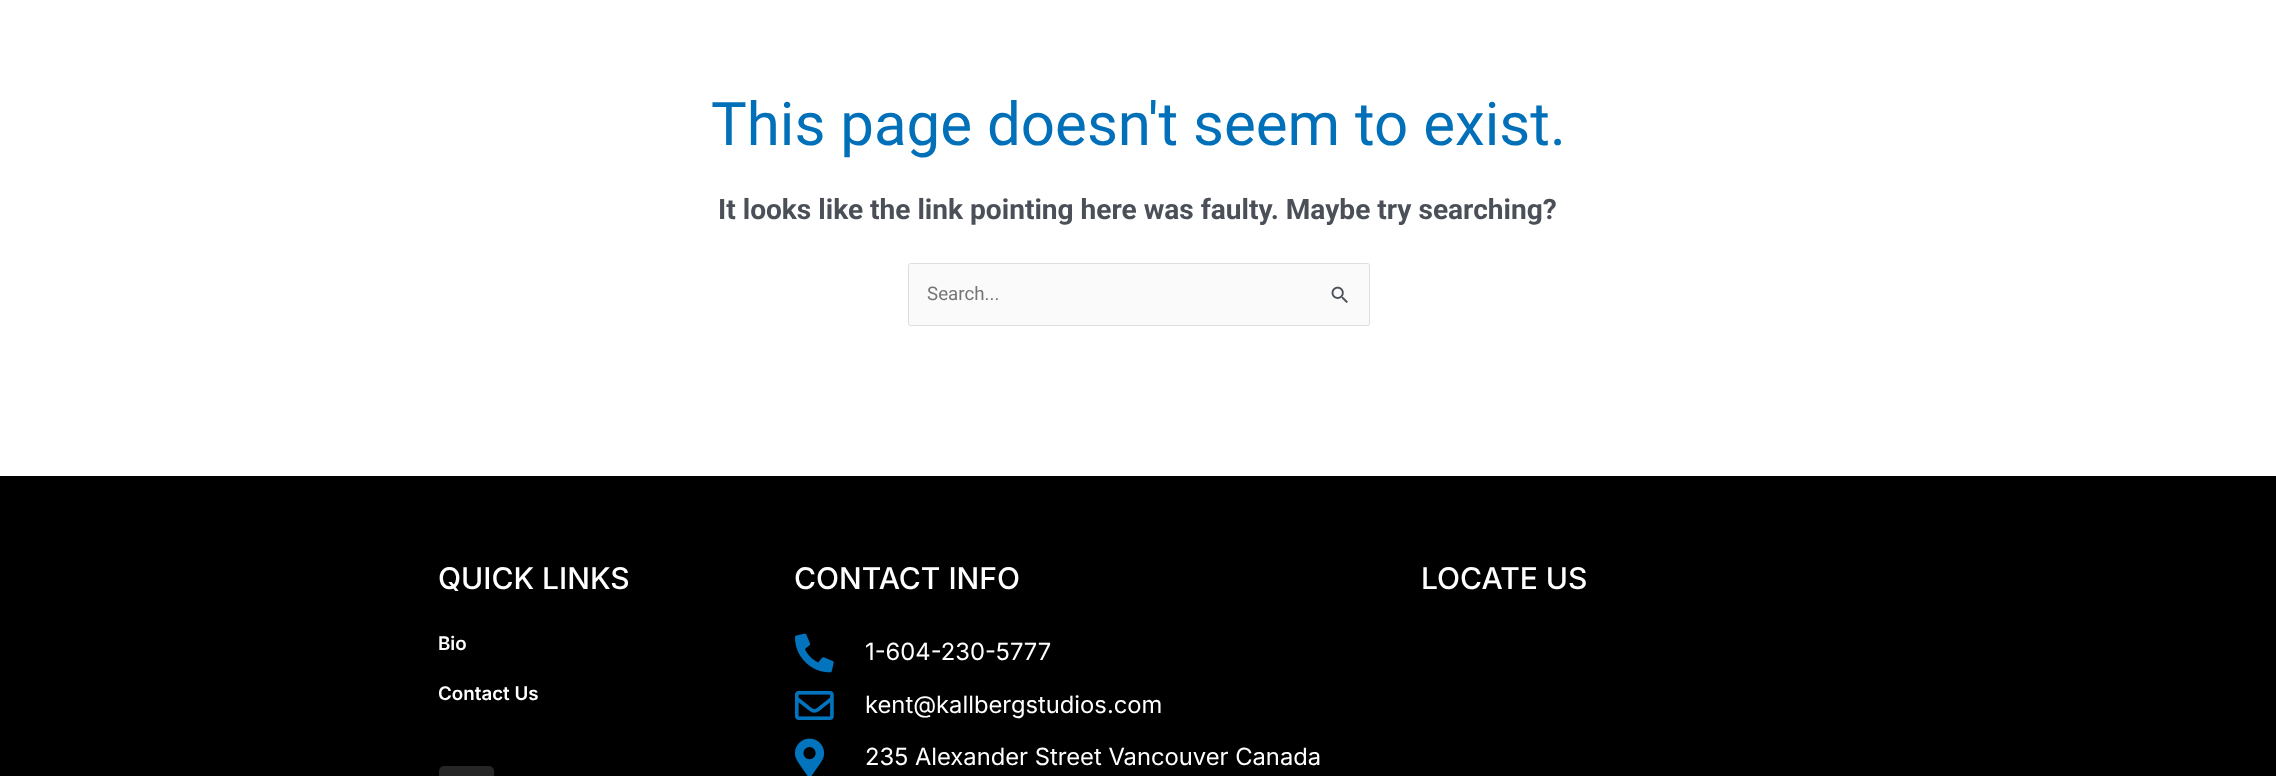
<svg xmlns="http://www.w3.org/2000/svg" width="2276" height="776">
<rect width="100%" height="100%" fill="#fff"/>
<text x="711" y="145" style="font-family:Roboto;font-size:60px;fill:#0170b9">This page doesn't seem to exist.</text>
<text x="718" y="219" style="font-family:Roboto;font-size:28.1px;font-weight:bold;fill:#4b4f58">It looks like the link pointing here was faulty. Maybe try searching?</text>
<rect x="908.5" y="263.5" width="461" height="62" rx="2" fill="#fafafa" stroke="#ddd"/>
<text x="927" y="300" style="font-family:Roboto;font-size:18.75px;fill:#757575">Search...</text>
<image x="1331" y="286" width="17" height="17" href="media/1.png"/>
<rect y="476" width="2276" height="300" fill="#000"/>
<text x="438" y="589" style="font-family:Inter;font-size:30px;font-weight:500;fill:#fff">QUICK LINKS</text>
<text x="438" y="650" style="font-family:Inter;font-size:18.75px;font-weight:600;fill:#fff">Bio</text>
<text x="438" y="700" style="font-family:Inter;font-size:18.75px;font-weight:600;fill:#fff">Contact Us</text>
<rect x="439" y="766" width="55" height="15" rx="5" fill="#262626"/>
<text x="794" y="589" style="font-family:Inter;font-size:30px;font-weight:500;fill:#fff">CONTACT INFO</text>
<image x="795" y="633" width="39" height="40" href="media/2.png"/>
<text x="865" y="660" style="font-family:Inter;font-size:23.75px;fill:#fff">1-604-230-5777</text>
<image x="795" y="690" width="39" height="30" href="media/3.png"/>
<text x="865" y="713" style="font-family:Inter;font-size:23.75px;fill:#fff">kent@kallbergstudios.com</text>
<image x="795" y="738" width="30" height="38" href="media/4.png"/>
<text x="865" y="765" style="font-family:Inter;font-size:23.75px;fill:#fff">235 Alexander Street Vancouver Canada</text>
<text x="1421" y="589" style="font-family:Inter;font-size:30px;font-weight:500;fill:#fff">LOCATE US</text>
</svg>
